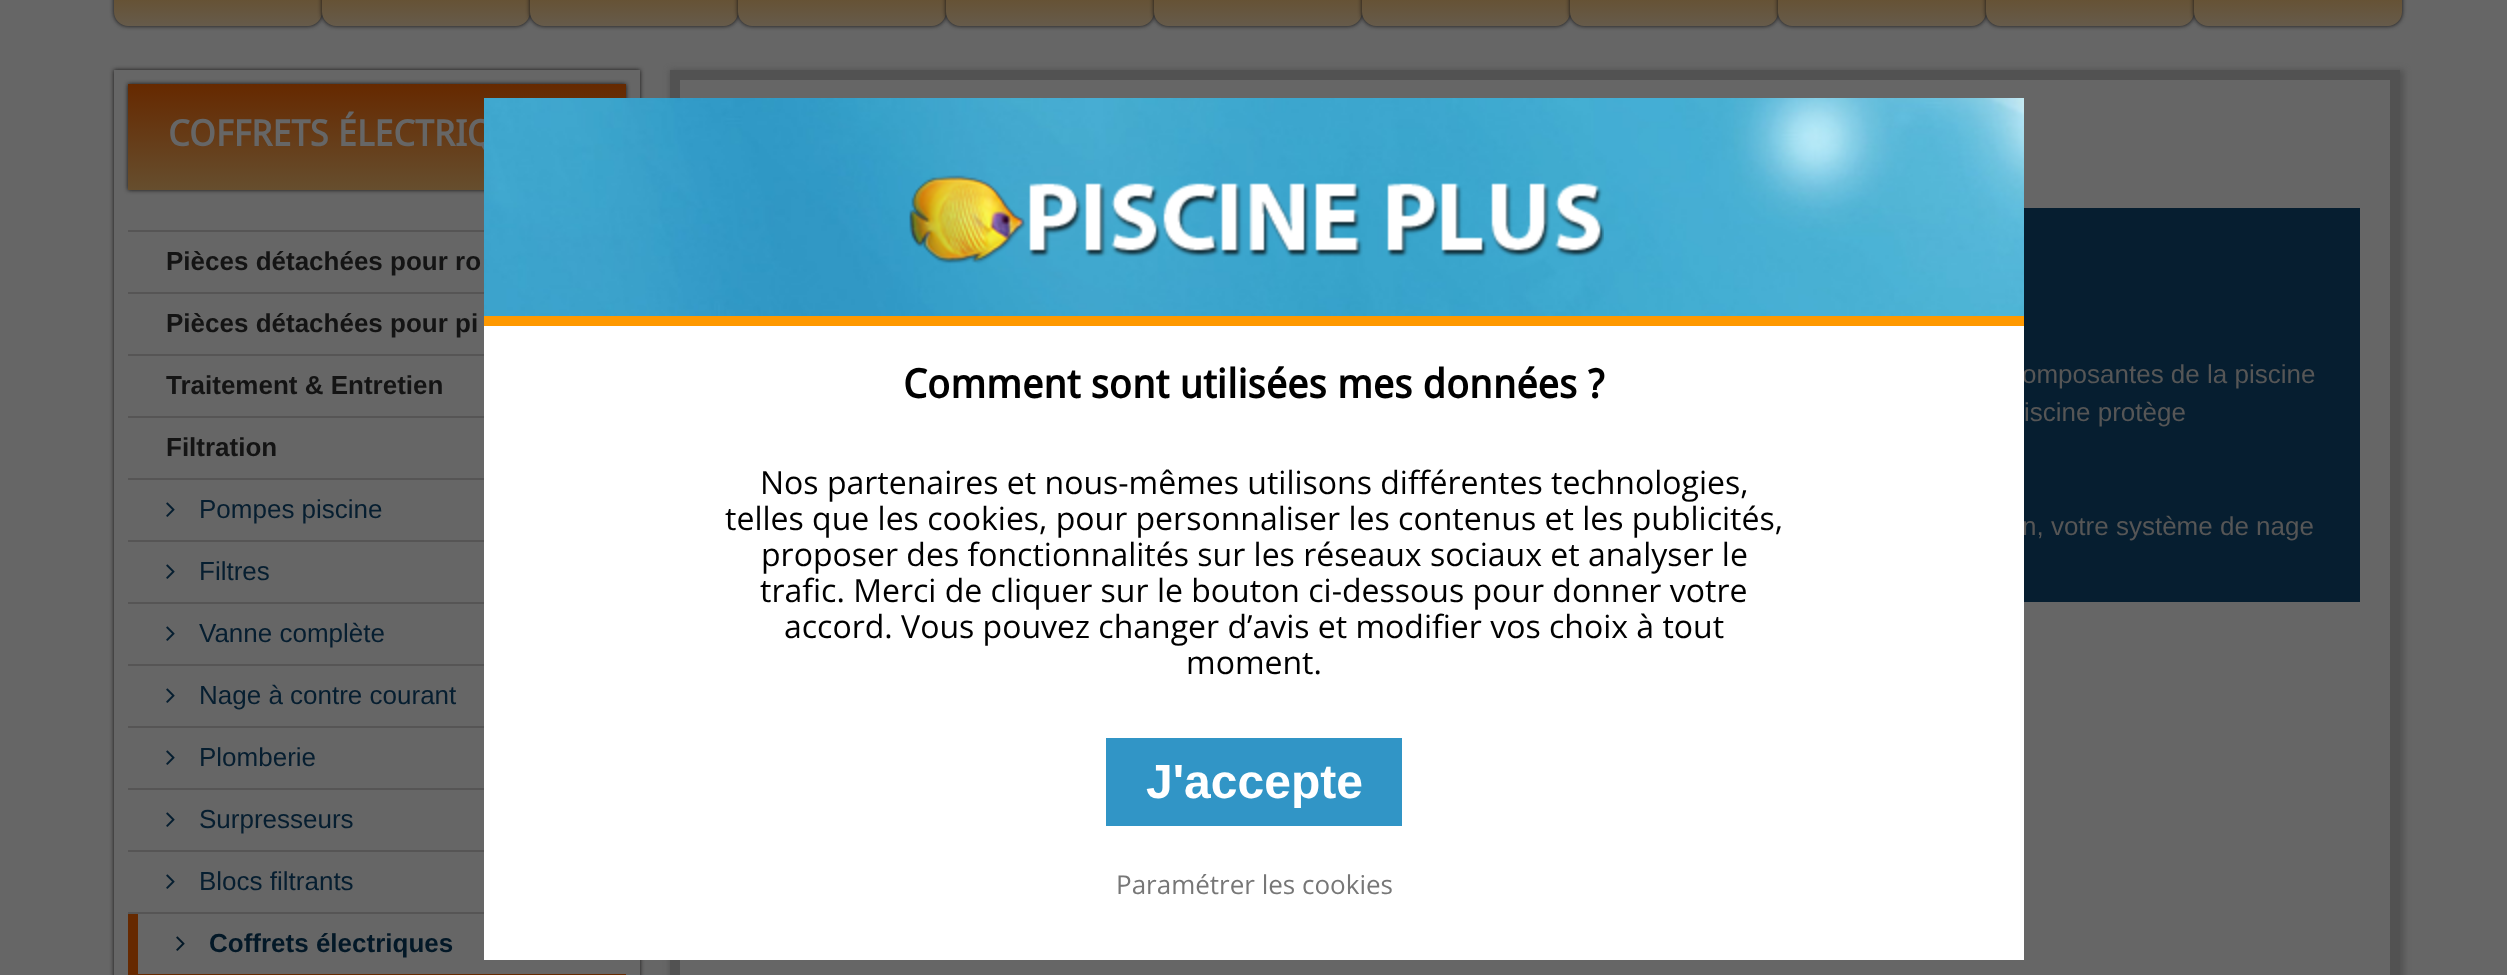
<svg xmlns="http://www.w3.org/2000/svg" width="2507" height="975">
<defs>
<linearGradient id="g1" gradientUnits="userSpaceOnUse" x1="114" y1="-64" x2="114" y2="26"><stop offset="0" stop-color="#663d00"/><stop offset="1" stop-color="#665b4b"/></linearGradient>
<linearGradient id="g2" gradientUnits="userSpaceOnUse" x1="322" y1="-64" x2="322" y2="26"><stop offset="0" stop-color="#663d00"/><stop offset="1" stop-color="#665b4b"/></linearGradient>
<linearGradient id="g3" gradientUnits="userSpaceOnUse" x1="530" y1="-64" x2="530" y2="26"><stop offset="0" stop-color="#663d00"/><stop offset="1" stop-color="#665b4b"/></linearGradient>
<linearGradient id="g4" gradientUnits="userSpaceOnUse" x1="738" y1="-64" x2="738" y2="26"><stop offset="0" stop-color="#663d00"/><stop offset="1" stop-color="#665b4b"/></linearGradient>
<linearGradient id="g5" gradientUnits="userSpaceOnUse" x1="946" y1="-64" x2="946" y2="26"><stop offset="0" stop-color="#663d00"/><stop offset="1" stop-color="#665b4b"/></linearGradient>
<linearGradient id="g6" gradientUnits="userSpaceOnUse" x1="1154" y1="-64" x2="1154" y2="26"><stop offset="0" stop-color="#663d00"/><stop offset="1" stop-color="#665b4b"/></linearGradient>
<linearGradient id="g7" gradientUnits="userSpaceOnUse" x1="1362" y1="-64" x2="1362" y2="26"><stop offset="0" stop-color="#663d00"/><stop offset="1" stop-color="#665b4b"/></linearGradient>
<linearGradient id="g8" gradientUnits="userSpaceOnUse" x1="1570" y1="-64" x2="1570" y2="26"><stop offset="0" stop-color="#663d00"/><stop offset="1" stop-color="#665b4b"/></linearGradient>
<linearGradient id="g9" gradientUnits="userSpaceOnUse" x1="1778" y1="-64" x2="1778" y2="26"><stop offset="0" stop-color="#663d00"/><stop offset="1" stop-color="#665b4b"/></linearGradient>
<linearGradient id="g10" gradientUnits="userSpaceOnUse" x1="1986" y1="-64" x2="1986" y2="26"><stop offset="0" stop-color="#663d00"/><stop offset="1" stop-color="#665b4b"/></linearGradient>
<linearGradient id="g11" gradientUnits="userSpaceOnUse" x1="2194" y1="-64" x2="2194" y2="26"><stop offset="0" stop-color="#663d00"/><stop offset="1" stop-color="#665b4b"/></linearGradient>
<clipPath id="clip1"><path d="M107 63h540v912h-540zm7 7h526v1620h-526z" clip-rule="evenodd"/></clipPath>
<linearGradient id="g12" gradientUnits="userSpaceOnUse" x1="128" y1="84" x2="128" y2="190"><stop offset="0" stop-color="#662900"/><stop offset="1" stop-color="#664e2e"/></linearGradient>
<clipPath id="clip2"><path d="M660 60h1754v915h-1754zm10 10h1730v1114h-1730z" clip-rule="evenodd"/></clipPath>
</defs>
<rect width="100%" height="100%" fill="#666"/>
<rect x="114" y="-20" width="208" height="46" rx="14" fill="#151414" filter="blur(2px)"/>
<path d="M114-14h208v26c0 7.5-6.5 14-14 14h-180c-7.5 0-14-6.5-14-14z" fill="url(#g1)"/>
<rect x="322" y="-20" width="208" height="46" rx="14" fill="#151414" filter="blur(2px)"/>
<path d="M322-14h208v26c0 7.5-6.5 14-14 14h-180c-7.5 0-14-6.5-14-14z" fill="url(#g2)"/>
<rect x="530" y="-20" width="208" height="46" rx="14" fill="#151414" filter="blur(2px)"/>
<path d="M530-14h208v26c0 7.5-6.5 14-14 14h-180c-7.5 0-14-6.5-14-14z" fill="url(#g3)"/>
<rect x="738" y="-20" width="208" height="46" rx="14" fill="#151414" filter="blur(2px)"/>
<path d="M738-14h208v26c0 7.5-6.5 14-14 14h-180c-7.5 0-14-6.5-14-14z" fill="url(#g4)"/>
<rect x="946" y="-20" width="208" height="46" rx="14" fill="#151414" filter="blur(2px)"/>
<path d="M946-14h208v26c0 7.5-6.5 14-14 14h-180c-7.5 0-14-6.5-14-14z" fill="url(#g5)"/>
<rect x="1154" y="-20" width="208" height="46" rx="14" fill="#151414" filter="blur(2px)"/>
<path d="M1154-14h208v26c0 7.5-6.5 14-14 14h-180c-7.5 0-14-6.5-14-14z" fill="url(#g6)"/>
<rect x="1362" y="-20" width="208" height="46" rx="14" fill="#151414" filter="blur(2px)"/>
<path d="M1362-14h208v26c0 7.5-6.5 14-14 14h-180c-7.5 0-14-6.5-14-14z" fill="url(#g7)"/>
<rect x="1570" y="-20" width="208" height="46" rx="14" fill="#151414" filter="blur(2px)"/>
<path d="M1570-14h208v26c0 7.5-6.5 14-14 14h-180c-7.5 0-14-6.5-14-14z" fill="url(#g8)"/>
<rect x="1778" y="-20" width="208" height="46" rx="14" fill="#151414" filter="blur(2px)"/>
<path d="M1778-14h208v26c0 7.5-6.5 14-14 14h-180c-7.5 0-14-6.5-14-14z" fill="url(#g9)"/>
<rect x="1986" y="-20" width="208" height="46" rx="14" fill="#151414" filter="blur(2px)"/>
<path d="M1986-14h208v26c0 7.5-6.5 14-14 14h-180c-7.5 0-14-6.5-14-14z" fill="url(#g10)"/>
<rect x="2194" y="-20" width="208" height="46" rx="14" fill="#151414" filter="blur(2px)"/>
<path d="M2194-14h208v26c0 7.5-6.5 14-14 14h-180c-7.5 0-14-6.5-14-14z" fill="url(#g11)"/>
<g clip-path="url(#clip1)">
<rect x="114" y="70" width="526" height="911" fill="#151414" filter="blur(2px)"/>
</g>
<rect x="128" y="84" width="498" height="106" fill="#151414" filter="blur(2px)"/>
<rect x="128" y="84" width="498" height="106" fill="url(#g12)"/>
<text x="168" y="146" style="font-family:Droid Sans;font-size:36px;font-weight:bold;fill:#666">COFFRETS ÉLECTRIQ</text>
<rect x="128" y="230" width="356" height="2" fill="#565555"/>
<rect x="128" y="292" width="356" height="2" fill="#565555"/>
<text x="166" y="270" style="font-family:Liberation Sans;font-size:26px;font-weight:bold;fill:#141414">Pièces détachées pour ro</text>
<rect x="128" y="354" width="356" height="2" fill="#565555"/>
<text x="166" y="332" style="font-family:Liberation Sans;font-size:26px;font-weight:bold;fill:#141414">Pièces détachées pour pi</text>
<rect x="128" y="416" width="356" height="2" fill="#565555"/>
<text x="166" y="394" style="font-family:Liberation Sans;font-size:26px;font-weight:bold;fill:#141414">Traitement &amp; Entretien</text>
<rect x="128" y="478" width="356" height="2" fill="#565555"/>
<text x="166" y="456" style="font-family:Liberation Sans;font-size:26px;font-weight:bold;fill:#141414">Filtration</text>
<rect x="128" y="540" width="356" height="2" fill="#565555"/>
<image x="166" y="502" width="9" height="15" href="media/1.png"/>
<text x="199" y="518" style="font-family:Liberation Sans;font-size:26px;fill:#061e30">Pompes piscine</text>
<rect x="128" y="602" width="356" height="2" fill="#565555"/>
<image x="166" y="564" width="9" height="15" href="media/1.png"/>
<text x="199" y="580" style="font-family:Liberation Sans;font-size:26px;fill:#061e30">Filtres</text>
<rect x="128" y="664" width="356" height="2" fill="#565555"/>
<image x="166" y="626" width="9" height="15" href="media/1.png"/>
<text x="199" y="642" style="font-family:Liberation Sans;font-size:26px;fill:#061e30">Vanne complète</text>
<rect x="128" y="726" width="356" height="2" fill="#565555"/>
<image x="166" y="688" width="9" height="15" href="media/1.png"/>
<text x="199" y="704" style="font-family:Liberation Sans;font-size:26px;fill:#061e30">Nage à contre courant</text>
<rect x="128" y="788" width="356" height="2" fill="#565555"/>
<image x="166" y="750" width="9" height="15" href="media/1.png"/>
<text x="199" y="766" style="font-family:Liberation Sans;font-size:26px;fill:#061e30">Plomberie</text>
<rect x="128" y="850" width="356" height="2" fill="#565555"/>
<image x="166" y="812" width="9" height="15" href="media/1.png"/>
<text x="199" y="828" style="font-family:Liberation Sans;font-size:26px;fill:#061e30">Surpresseurs</text>
<rect x="128" y="912" width="356" height="2" fill="#565555"/>
<image x="166" y="874" width="9" height="15" href="media/1.png"/>
<text x="199" y="890" style="font-family:Liberation Sans;font-size:26px;fill:#061e30">Blocs filtrants</text>
<rect x="138" y="974" width="488" height="1" fill="#662900"/>
<rect x="128" y="914" width="10" height="61" fill="#662900"/>
<image x="176" y="936" width="9" height="15" href="media/2.png"/>
<text x="209" y="952" style="font-family:Liberation Sans;font-size:26px;font-weight:bold;fill:#031827">Coffrets électriques</text>
<g clip-path="url(#clip2)">
<rect x="670" y="70" width="1734" height="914" fill="#525252" filter="blur(3px)"/>
</g>
<rect x="675" y="75" width="1720" height="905" fill="none" stroke="#525252" stroke-width="10"/>
<rect x="2024" y="208" width="336" height="394" fill="#061e30"/>
<text x="2022" y="383" style="font-family:Liberation Sans;font-size:26px;fill:#565656">omposantes de la piscine</text>
<text x="2024" y="421" style="font-family:Liberation Sans;font-size:26px;fill:#565656">iscine protège</text>
<text x="2022" y="535" style="font-family:Liberation Sans;font-size:26px;fill:#565656">n, votre système de nage</text>
<rect x="484" y="326" width="1540" height="634" fill="#fff"/>
<image x="484" y="98" width="1540" height="218" href="media/3.png"/>
<rect x="484" y="316" width="1540" height="10" fill="#f90"/>
<image x="909" y="175" width="695" height="89" href="media/4.png"/>
<text x="903" y="398" style="font-family:Droid Sans;font-size:40px;font-weight:bold;fill:#000">Comment sont utilisées mes données ?</text>
<text x="760" y="494" style="font-family:Open Sans;font-size:32px;fill:#000">Nos partenaires et nous-mêmes utilisons différentes technologies,</text>
<text x="725" y="530" style="font-family:Open Sans;font-size:32px;fill:#000">telles que les cookies, pour personnaliser les contenus et les publicités,</text>
<text x="761" y="566" style="font-family:Open Sans;font-size:32px;fill:#000">proposer des fonctionnalités sur les réseaux sociaux et analyser le</text>
<text x="760" y="602" style="font-family:Open Sans;font-size:32px;fill:#000">trafic. Merci de cliquer sur le bouton ci-dessous pour donner votre</text>
<text x="784" y="638" style="font-family:Open Sans;font-size:32px;fill:#000">accord. Vous pouvez changer d’avis et modifier vos choix à tout</text>
<text x="1186" y="674" style="font-family:Open Sans;font-size:32px;fill:#000">moment.</text>
<rect x="1106" y="738" width="296" height="88" fill="#3195c6"/>
<text x="1146" y="798" style="font-family:Liberation Sans;font-size:48px;font-weight:bold;fill:#fff">J'accepte</text>
<text x="1116" y="894" style="font-family:Open Sans;font-size:26px;fill:#777">Paramétrer les cookies</text>
</svg>
